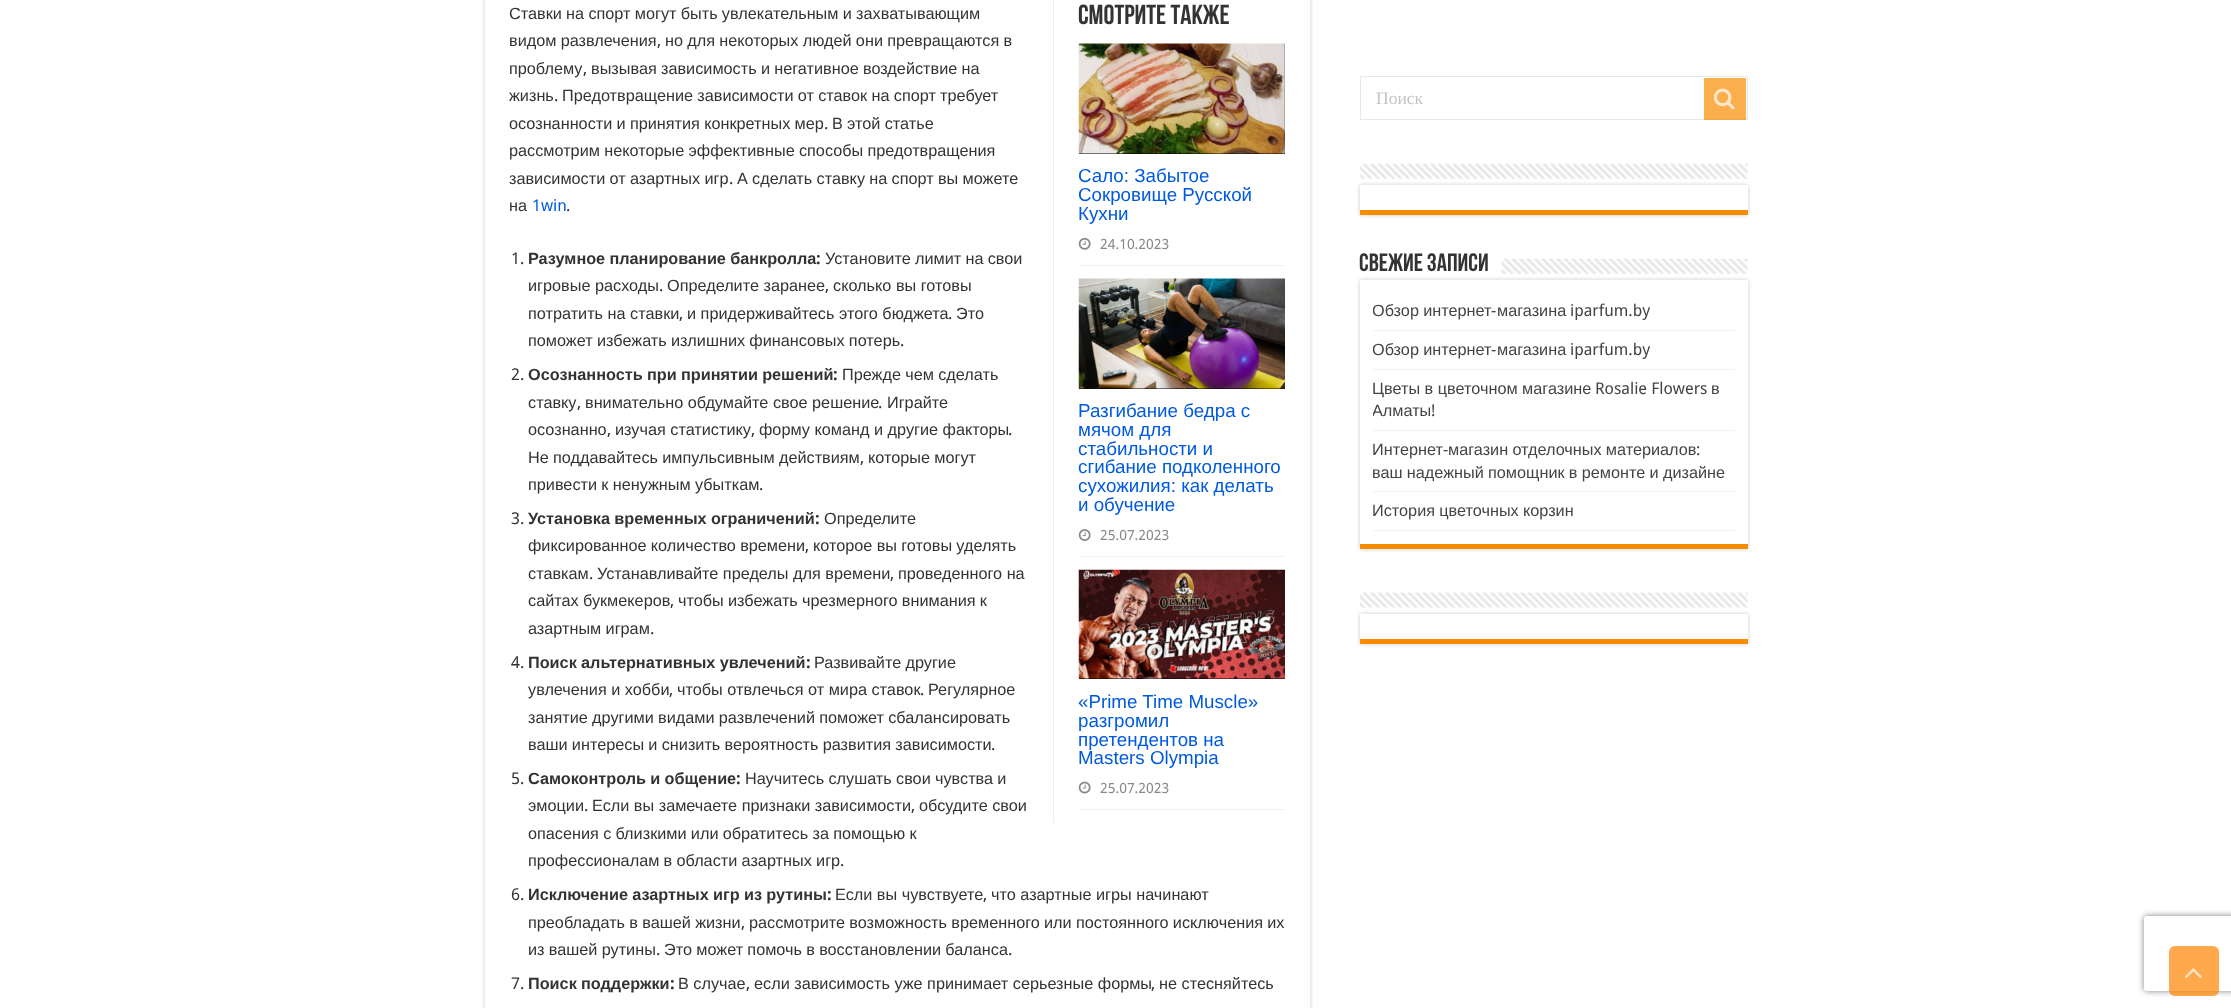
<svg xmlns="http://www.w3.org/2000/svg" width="2231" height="1008">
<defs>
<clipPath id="clip1"><path d="M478 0h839v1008h-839zm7-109h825v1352h-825z" clip-rule="evenodd"/></clipPath>
<clipPath id="clip2"><rect x="1373" y="293" width="362" height="37"/></clipPath>
<clipPath id="clip3"><rect x="1373" y="331" width="362" height="38"/></clipPath>
<clipPath id="clip4"><rect x="1373" y="370" width="362" height="60"/></clipPath>
<clipPath id="clip5"><path d="M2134 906h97v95h-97zm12.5 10h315c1.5 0 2.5 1 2.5 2.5v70c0 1.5-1 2.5-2.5 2.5h-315c-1.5 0-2.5-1-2.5-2.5v-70c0-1.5 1-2.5 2.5-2.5z" clip-rule="evenodd"/></clipPath>
</defs>
<rect width="100%" height="100%" fill="#fff"/>
<g clip-path="url(#clip1)">
<rect x="485" y="-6" width="825" height="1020" fill="#cacaca" filter="blur(2px)"/>
</g>
<text x="509" y="19" word-spacing="-0.25" style="font-family:Liberation Sans;font-size:16.25px;fill:#333">Ставки на спорт могут быть увлекательным и захватывающим</text>
<text x="509" y="46" word-spacing="-0.25" style="font-family:Liberation Sans;font-size:16.25px;fill:#333">видом развлечения</text>
<text x="657" y="46" style="font-family:Droid Sans;font-size:16.25px;fill:#333">,</text>
<text x="665" y="46" word-spacing="-0.25" style="font-family:Liberation Sans;font-size:16.25px;fill:#333">но для некоторых людей они превращаются в</text>
<text x="509" y="74" style="font-family:Liberation Sans;font-size:16.25px;fill:#333">проблему</text>
<text x="583" y="74" style="font-family:Droid Sans;font-size:16.25px;fill:#333">,</text>
<text x="591" y="74" word-spacing="-0.25" style="font-family:Liberation Sans;font-size:16.25px;fill:#333">вызывая зависимость и негативное воздействие на</text>
<text x="509" y="101" style="font-family:Liberation Sans;font-size:16.25px;fill:#333">жизнь</text>
<text x="554" y="101" style="font-family:Droid Sans;font-size:16.25px;fill:#333">.</text>
<text x="562" y="101" word-spacing="-0.25" style="font-family:Liberation Sans;font-size:16.25px;fill:#333">Предотвращение зависимости от ставок на спорт требует</text>
<text x="509" y="129" word-spacing="-0.25" style="font-family:Liberation Sans;font-size:16.25px;fill:#333">осознанности и принятия конкретных мер</text>
<text x="824" y="129" style="font-family:Droid Sans;font-size:16.25px;fill:#333">.</text>
<text x="832" y="129" word-spacing="-0.25" style="font-family:Liberation Sans;font-size:16.25px;fill:#333">В этой статье</text>
<text x="509" y="156" word-spacing="-0.25" style="font-family:Liberation Sans;font-size:16.25px;fill:#333">рассмотрим некоторые эффективные способы предотвращения</text>
<text x="509" y="184" word-spacing="-0.25" style="font-family:Liberation Sans;font-size:16.25px;fill:#333">зависимости от азартных игр</text>
<text x="729" y="184" style="font-family:Droid Sans;font-size:16.25px;fill:#333">.</text>
<text x="737" y="184" word-spacing="-0.25" style="font-family:Liberation Sans;font-size:16.25px;fill:#333">А сделать ставку на спорт вы можете</text>
<text x="509" y="211" style="font-family:Liberation Sans;font-size:16.25px;fill:#333">на</text>
<text x="532" y="211" style="font-family:Droid Sans;font-size:16.25px;fill:#005ae0">1win</text>
<text x="566" y="211" style="font-family:Droid Sans;font-size:16.25px;fill:#333">.</text>
<rect x="1053" width="1" height="823" fill="#eee"/>
<text x="1078" y="24" style="font-family:Bebas Neue;font-size:27.5px;font-weight:bold;fill:#333">Смотрите также</text>
<rect x="1079" y="153" width="206" height="1" fill="#000"/>
<image x="1078" y="43" width="207" height="111" href="media/1.png"/>
<text x="1078" y="182" style="font-family:Liberation Sans;font-size:18.75px;fill:#005ae0">Сало: Забытое</text>
<text x="1078" y="201" style="font-family:Liberation Sans;font-size:18.75px;fill:#005ae0">Сокровище Русской</text>
<text x="1078" y="220" style="font-family:Liberation Sans;font-size:18.75px;fill:#005ae0">Кухни</text>
<rect x="1079" y="265" width="206" height="1" fill="#f2f2f2"/>
<image x="1078" y="237" width="13" height="13" href="media/2.png"/>
<text x="1100" y="249" style="font-family:Droid Sans;font-size:14px;fill:#888">24.10.2023</text>
<rect x="1079" y="388" width="206" height="1" fill="#000"/>
<image x="1078" y="278" width="207" height="111" href="media/3.png"/>
<text x="1078" y="417" style="font-family:Liberation Sans;font-size:18.75px;fill:#005ae0">Разгибание бедра с</text>
<text x="1078" y="436" style="font-family:Liberation Sans;font-size:18.75px;fill:#005ae0">мячом для</text>
<text x="1078" y="455" style="font-family:Liberation Sans;font-size:18.75px;fill:#005ae0">стабильности и</text>
<text x="1078" y="473" style="font-family:Liberation Sans;font-size:18.75px;fill:#005ae0">сгибание подколенного</text>
<text x="1078" y="492" style="font-family:Liberation Sans;font-size:18.75px;fill:#005ae0">сухожилия: как делать</text>
<text x="1078" y="511" style="font-family:Liberation Sans;font-size:18.75px;fill:#005ae0">и обучение</text>
<rect x="1079" y="556" width="206" height="1" fill="#f2f2f2"/>
<image x="1078" y="529" width="13" height="12" href="media/4.png"/>
<text x="1100" y="540" style="font-family:Droid Sans;font-size:14px;fill:#888">25.07.2023</text>
<rect x="1079" y="678" width="206" height="1" fill="#000"/>
<image x="1078" y="569" width="207" height="110" href="media/5.png"/>
<text x="1078" y="708" style="font-family:Liberation Sans;font-size:18.75px;fill:#005ae0">«Prime Time Muscle»</text>
<text x="1078" y="727" style="font-family:Liberation Sans;font-size:18.75px;fill:#005ae0">разгромил</text>
<text x="1078" y="746" style="font-family:Liberation Sans;font-size:18.75px;fill:#005ae0">претендентов на</text>
<text x="1078" y="764" style="font-family:Liberation Sans;font-size:18.75px;fill:#005ae0">Masters Olympia</text>
<rect x="1079" y="809" width="206" height="1" fill="#f2f2f2"/>
<image x="1078" y="781" width="13" height="13" href="media/6.png"/>
<text x="1100" y="793" style="font-family:Droid Sans;font-size:14px;fill:#888">25.07.2023</text>
<text x="511" y="264" style="font-family:Droid Sans;font-size:16.25px;fill:#333">1.</text>
<text x="528" y="264" word-spacing="-0.25" style="font-family:Liberation Sans;font-size:16.25px;font-weight:bold;fill:#333">Разумное планирование банкролла</text>
<text x="816" y="264" style="font-family:Droid Sans;font-size:16.25px;font-weight:bold;fill:#333">:</text>
<text x="825" y="264" word-spacing="-0.25" style="font-family:Liberation Sans;font-size:16.25px;fill:#333">Установите лимит на свои</text>
<text x="528" y="291" style="font-family:Liberation Sans;font-size:16.25px;fill:#333">игровые расходы</text>
<text x="659" y="291" style="font-family:Droid Sans;font-size:16.25px;fill:#333">.</text>
<text x="667" y="291" style="font-family:Liberation Sans;font-size:16.25px;fill:#333">Определите заранее</text>
<text x="825" y="291" style="font-family:Droid Sans;font-size:16.25px;fill:#333">,</text>
<text x="833" y="291" style="font-family:Liberation Sans;font-size:16.25px;fill:#333">сколько вы готовы</text>
<text x="528" y="319" style="font-family:Liberation Sans;font-size:16.25px;fill:#333">потратить на ставки</text>
<text x="679" y="319" style="font-family:Droid Sans;font-size:16.25px;fill:#333">,</text>
<text x="687" y="319" style="font-family:Liberation Sans;font-size:16.25px;fill:#333">и придерживайтесь этого бюджета</text>
<text x="948" y="319" style="font-family:Droid Sans;font-size:16.25px;fill:#333">.</text>
<text x="956" y="319" style="font-family:Liberation Sans;font-size:16.25px;fill:#333">Это</text>
<text x="528" y="346" word-spacing="-0.25" style="font-family:Liberation Sans;font-size:16.25px;fill:#333">поможет избежать излишних финансовых потерь</text>
<text x="900" y="346" style="font-family:Droid Sans;font-size:16.25px;fill:#333">.</text>
<text x="511" y="380" style="font-family:Droid Sans;font-size:16.25px;fill:#333">2.</text>
<text x="528" y="380" word-spacing="-0.25" style="font-family:Liberation Sans;font-size:16.25px;font-weight:bold;fill:#333">Осознанность при принятии решений</text>
<text x="833" y="380" style="font-family:Droid Sans;font-size:16.25px;font-weight:bold;fill:#333">:</text>
<text x="842" y="380" word-spacing="-0.25" style="font-family:Liberation Sans;font-size:16.25px;fill:#333">Прежде чем сделать</text>
<text x="528" y="408" style="font-family:Liberation Sans;font-size:16.25px;fill:#333">ставку</text>
<text x="577" y="408" style="font-family:Droid Sans;font-size:16.25px;fill:#333">,</text>
<text x="585" y="408" style="font-family:Liberation Sans;font-size:16.25px;fill:#333">внимательно обдумайте свое решение</text>
<text x="878" y="408" style="font-family:Droid Sans;font-size:16.25px;fill:#333">.</text>
<text x="887" y="408" style="font-family:Liberation Sans;font-size:16.25px;fill:#333">Играйте</text>
<text x="528" y="435" style="font-family:Liberation Sans;font-size:16.25px;fill:#333">осознанно</text>
<text x="607" y="435" style="font-family:Droid Sans;font-size:16.25px;fill:#333">,</text>
<text x="615" y="435" style="font-family:Liberation Sans;font-size:16.25px;fill:#333">изучая статистику</text>
<text x="751" y="435" style="font-family:Droid Sans;font-size:16.25px;fill:#333">,</text>
<text x="759" y="435" style="font-family:Liberation Sans;font-size:16.25px;fill:#333">форму команд и другие факторы</text>
<text x="1008" y="435" style="font-family:Droid Sans;font-size:16.25px;fill:#333">.</text>
<text x="528" y="463" word-spacing="-0.25" style="font-family:Liberation Sans;font-size:16.25px;fill:#333">Не поддавайтесь импульсивным действиям</text>
<text x="860" y="463" style="font-family:Droid Sans;font-size:16.25px;fill:#333">,</text>
<text x="868" y="463" word-spacing="-0.25" style="font-family:Liberation Sans;font-size:16.25px;fill:#333">которые могут</text>
<text x="528" y="490" word-spacing="-0.25" style="font-family:Liberation Sans;font-size:16.25px;fill:#333">привести к ненужным убыткам</text>
<text x="759" y="490" style="font-family:Droid Sans;font-size:16.25px;fill:#333">.</text>
<text x="511" y="524" style="font-family:Droid Sans;font-size:16.25px;fill:#333">3.</text>
<text x="528" y="524" word-spacing="-0.25" style="font-family:Liberation Sans;font-size:16.25px;font-weight:bold;fill:#333">Установка временных ограничений</text>
<text x="815" y="524" style="font-family:Droid Sans;font-size:16.25px;font-weight:bold;fill:#333">:</text>
<text x="824" y="524" style="font-family:Liberation Sans;font-size:16.25px;fill:#333">Определите</text>
<text x="528" y="551" word-spacing="-0.25" style="font-family:Liberation Sans;font-size:16.25px;fill:#333">фиксированное количество времени</text>
<text x="805" y="551" style="font-family:Droid Sans;font-size:16.25px;fill:#333">,</text>
<text x="813" y="551" word-spacing="-0.25" style="font-family:Liberation Sans;font-size:16.25px;fill:#333">которое вы готовы уделять</text>
<text x="528" y="579" style="font-family:Liberation Sans;font-size:16.25px;fill:#333">ставкам</text>
<text x="589" y="579" style="font-family:Droid Sans;font-size:16.25px;fill:#333">.</text>
<text x="597" y="579" style="font-family:Liberation Sans;font-size:16.25px;fill:#333">Устанавливайте пределы для времени</text>
<text x="890" y="579" style="font-family:Droid Sans;font-size:16.25px;fill:#333">,</text>
<text x="898" y="579" style="font-family:Liberation Sans;font-size:16.25px;fill:#333">проведенного на</text>
<text x="528" y="606" word-spacing="-0.25" style="font-family:Liberation Sans;font-size:16.25px;fill:#333">сайтах букмекеров</text>
<text x="670" y="606" style="font-family:Droid Sans;font-size:16.25px;fill:#333">,</text>
<text x="678" y="606" word-spacing="-0.25" style="font-family:Liberation Sans;font-size:16.25px;fill:#333">чтобы избежать чрезмерного внимания к</text>
<text x="528" y="634" word-spacing="-0.25" style="font-family:Liberation Sans;font-size:16.25px;fill:#333">азартным играм</text>
<text x="650" y="634" style="font-family:Droid Sans;font-size:16.25px;fill:#333">.</text>
<text x="511" y="668" style="font-family:Droid Sans;font-size:16.25px;fill:#333">4.</text>
<text x="528" y="668" word-spacing="-0.25" style="font-family:Liberation Sans;font-size:16.25px;font-weight:bold;fill:#333">Поиск альтернативных увлечений</text>
<text x="806" y="668" style="font-family:Droid Sans;font-size:16.25px;font-weight:bold;fill:#333">:</text>
<text x="814" y="668" word-spacing="-0.25" style="font-family:Liberation Sans;font-size:16.25px;fill:#333">Развивайте другие</text>
<text x="528" y="695" style="font-family:Liberation Sans;font-size:16.25px;fill:#333">увлечения и хобби</text>
<text x="669" y="695" style="font-family:Droid Sans;font-size:16.25px;fill:#333">,</text>
<text x="677" y="695" style="font-family:Liberation Sans;font-size:16.25px;fill:#333">чтобы отвлечься от мира ставок</text>
<text x="920" y="695" style="font-family:Droid Sans;font-size:16.25px;fill:#333">.</text>
<text x="928" y="695" style="font-family:Liberation Sans;font-size:16.25px;fill:#333">Регулярное</text>
<text x="528" y="723" word-spacing="-0.25" style="font-family:Liberation Sans;font-size:16.25px;fill:#333">занятие другими видами развлечений поможет сбалансировать</text>
<text x="528" y="750" word-spacing="-0.25" style="font-family:Liberation Sans;font-size:16.25px;fill:#333">ваши интересы и снизить вероятность развития зависимости</text>
<text x="991" y="750" style="font-family:Droid Sans;font-size:16.25px;fill:#333">.</text>
<text x="511" y="784" style="font-family:Droid Sans;font-size:16.25px;fill:#333">5.</text>
<text x="528" y="784" word-spacing="-0.25" style="font-family:Liberation Sans;font-size:16.25px;font-weight:bold;fill:#333">Самоконтроль и общение</text>
<text x="736" y="784" style="font-family:Droid Sans;font-size:16.25px;font-weight:bold;fill:#333">:</text>
<text x="745" y="784" word-spacing="-0.25" style="font-family:Liberation Sans;font-size:16.25px;fill:#333">Научитесь слушать свои чувства и</text>
<text x="528" y="811" style="font-family:Liberation Sans;font-size:16.25px;fill:#333">эмоции</text>
<text x="584" y="811" style="font-family:Droid Sans;font-size:16.25px;fill:#333">.</text>
<text x="592" y="811" style="font-family:Liberation Sans;font-size:16.25px;fill:#333">Если вы замечаете признаки зависимости</text>
<text x="911" y="811" style="font-family:Droid Sans;font-size:16.25px;fill:#333">,</text>
<text x="919" y="811" style="font-family:Liberation Sans;font-size:16.25px;fill:#333">обсудите свои</text>
<text x="528" y="839" word-spacing="-0.25" style="font-family:Liberation Sans;font-size:16.25px;fill:#333">опасения с близкими или обратитесь за помощью к</text>
<text x="528" y="866" word-spacing="-0.25" style="font-family:Liberation Sans;font-size:16.25px;fill:#333">профессионалам в области азартных игр</text>
<text x="840" y="866" style="font-family:Droid Sans;font-size:16.25px;fill:#333">.</text>
<text x="511" y="900" style="font-family:Droid Sans;font-size:16.25px;fill:#333">6.</text>
<text x="528" y="900" word-spacing="-0.25" style="font-family:Liberation Sans;font-size:16.25px;font-weight:bold;fill:#333">Исключение азартных игр из рутины</text>
<text x="827" y="900" style="font-family:Droid Sans;font-size:16.25px;font-weight:bold;fill:#333">:</text>
<text x="835" y="900" style="font-family:Liberation Sans;font-size:16.25px;fill:#333">Если вы чувствуете</text>
<text x="983" y="900" style="font-family:Droid Sans;font-size:16.25px;fill:#333">,</text>
<text x="991" y="900" style="font-family:Liberation Sans;font-size:16.25px;fill:#333">что азартные игры начинают</text>
<text x="528" y="928" word-spacing="-0.25" style="font-family:Liberation Sans;font-size:16.25px;fill:#333">преобладать в вашей жизни</text>
<text x="741" y="928" style="font-family:Droid Sans;font-size:16.25px;fill:#333">,</text>
<text x="749" y="928" word-spacing="-0.25" style="font-family:Liberation Sans;font-size:16.25px;fill:#333">рассмотрите возможность временного или постоянного исключения их</text>
<text x="528" y="955" word-spacing="-0.25" style="font-family:Liberation Sans;font-size:16.25px;fill:#333">из вашей рутины</text>
<text x="656" y="955" style="font-family:Droid Sans;font-size:16.25px;fill:#333">.</text>
<text x="664" y="955" word-spacing="-0.25" style="font-family:Liberation Sans;font-size:16.25px;fill:#333">Это может помочь в восстановлении баланса</text>
<text x="1008" y="955" style="font-family:Droid Sans;font-size:16.25px;fill:#333">.</text>
<text x="511" y="989" style="font-family:Droid Sans;font-size:16.25px;fill:#333">7.</text>
<text x="528" y="989" word-spacing="-0.25" style="font-family:Liberation Sans;font-size:16.25px;font-weight:bold;fill:#333">Поиск поддержки</text>
<text x="670" y="989" style="font-family:Droid Sans;font-size:16.25px;font-weight:bold;fill:#333">:</text>
<text x="678" y="989" style="font-family:Liberation Sans;font-size:16.25px;fill:#333">В случае</text>
<text x="746" y="989" style="font-family:Droid Sans;font-size:16.25px;fill:#333">,</text>
<text x="754" y="989" style="font-family:Liberation Sans;font-size:16.25px;fill:#333">если зависимость уже принимает серьезные формы</text>
<text x="1151" y="989" style="font-family:Droid Sans;font-size:16.25px;fill:#333">,</text>
<text x="1159" y="989" style="font-family:Liberation Sans;font-size:16.25px;fill:#333">не стесняйтесь</text>
<rect x="1360.5" y="76.5" width="387" height="43" fill="none" stroke="#e8e8e8"/>
<text x="1376" y="104" style="font-family:Liberation Serif;font-size:17.5px;fill:#c5c5c5">Поиск</text>
<rect x="1704" y="78" width="42" height="42" fill="#f88c00b3"/>
<image x="1713" y="88" width="22" height="22" href="media/7.png"/>
<rect x="1360" y="185" width="388" height="30" fill="#cacaca" filter="blur(2px)"/>
<image x="1360" y="163" width="388" height="16" href="media/8.png"/>
<rect x="1360" y="185" width="388" height="25" fill="#fff"/>
<rect x="1360" y="210" width="388" height="5" fill="#f88c00"/>
<text x="1359" y="271" style="font-family:Bebas Neue;font-size:25px;font-weight:bold;fill:#333">Свежие записи</text>
<rect x="1360" y="280" width="388" height="269" fill="#cacaca" filter="blur(2px)"/>
<image x="1501" y="258" width="247" height="16" href="media/9.png"/>
<rect x="1360" y="280" width="388" height="264" fill="#fff"/>
<rect x="1360" y="544" width="388" height="5" fill="#f88c00"/>
<rect x="1373" y="330" width="362" height="1" fill="#f2f2f2"/>
<g clip-path="url(#clip2)">
<text x="1372" y="316" word-spacing="-0.25" style="font-family:Liberation Sans;font-size:16.25px;fill:#444">Обзор интернет</text>
</g>
<text x="1491" y="316" style="font-family:Droid Sans;font-size:16.25px;fill:#444">-</text>
<text x="1497" y="316" style="font-family:Liberation Sans;font-size:16.25px;fill:#444">магазина</text>
<text x="1570" y="316" style="font-family:Droid Sans;font-size:16.25px;fill:#444">iparfum.by</text>
<rect x="1373" y="369" width="362" height="1" fill="#f2f2f2"/>
<g clip-path="url(#clip3)">
<text x="1372" y="355" word-spacing="-0.25" style="font-family:Liberation Sans;font-size:16.25px;fill:#444">Обзор интернет</text>
</g>
<text x="1491" y="355" style="font-family:Droid Sans;font-size:16.25px;fill:#444">-</text>
<text x="1497" y="355" style="font-family:Liberation Sans;font-size:16.25px;fill:#444">магазина</text>
<text x="1570" y="355" style="font-family:Droid Sans;font-size:16.25px;fill:#444">iparfum.by</text>
<rect x="1373" y="430" width="362" height="1" fill="#f2f2f2"/>
<text x="1372" y="394" style="font-family:Liberation Sans;font-size:16.25px;fill:#444">Цветы в цветочном магазине</text>
<text x="1595" y="394" style="font-family:Droid Sans;font-size:16.25px;fill:#444">Rosalie Flowers</text>
<text x="1711" y="394" style="font-family:Liberation Sans;font-size:16.25px;fill:#444">в</text>
<g clip-path="url(#clip4)">
<text x="1372" y="416" style="font-family:Liberation Sans;font-size:16.25px;fill:#444">Алматы</text>
</g>
<text x="1431" y="416" style="font-family:Droid Sans;font-size:16.25px;fill:#444">!</text>
<rect x="1373" y="491" width="362" height="1" fill="#f2f2f2"/>
<text x="1372" y="455" style="font-family:Liberation Sans;font-size:16.25px;fill:#444">Интернет</text>
<text x="1443" y="455" style="font-family:Droid Sans;font-size:16.25px;fill:#444">-</text>
<text x="1448" y="455" word-spacing="-0.25" style="font-family:Liberation Sans;font-size:16.25px;fill:#444">магазин отделочных материалов</text>
<text x="1696" y="455" style="font-family:Droid Sans;font-size:16.25px;fill:#444">:</text>
<text x="1372" y="478" word-spacing="-0.25" style="font-family:Liberation Sans;font-size:16.25px;fill:#444">ваш надежный помощник в ремонте и дизайне</text>
<rect x="1373" y="530" width="362" height="1" fill="#f2f2f2"/>
<text x="1372" y="516" word-spacing="-0.25" style="font-family:Liberation Sans;font-size:16.25px;fill:#444">История цветочных корзин</text>
<rect x="1360" y="614" width="388" height="30" fill="#cacaca" filter="blur(2px)"/>
<image x="1360" y="592" width="388" height="16" href="media/10.png"/>
<rect x="1360" y="614" width="388" height="25" fill="#fff"/>
<rect x="1360" y="639" width="388" height="5" fill="#f88c00"/>
<g clip-path="url(#clip5)">
<rect x="2144" y="916" width="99" height="75" rx="2.5" fill="#808080" filter="blur(3px)"/>
</g>
<rect x="2169" y="946" width="50" height="50" rx="6" fill="#ff8500b3"/>
<image x="2185" y="968" width="17" height="10" href="media/11.png"/>
</svg>
